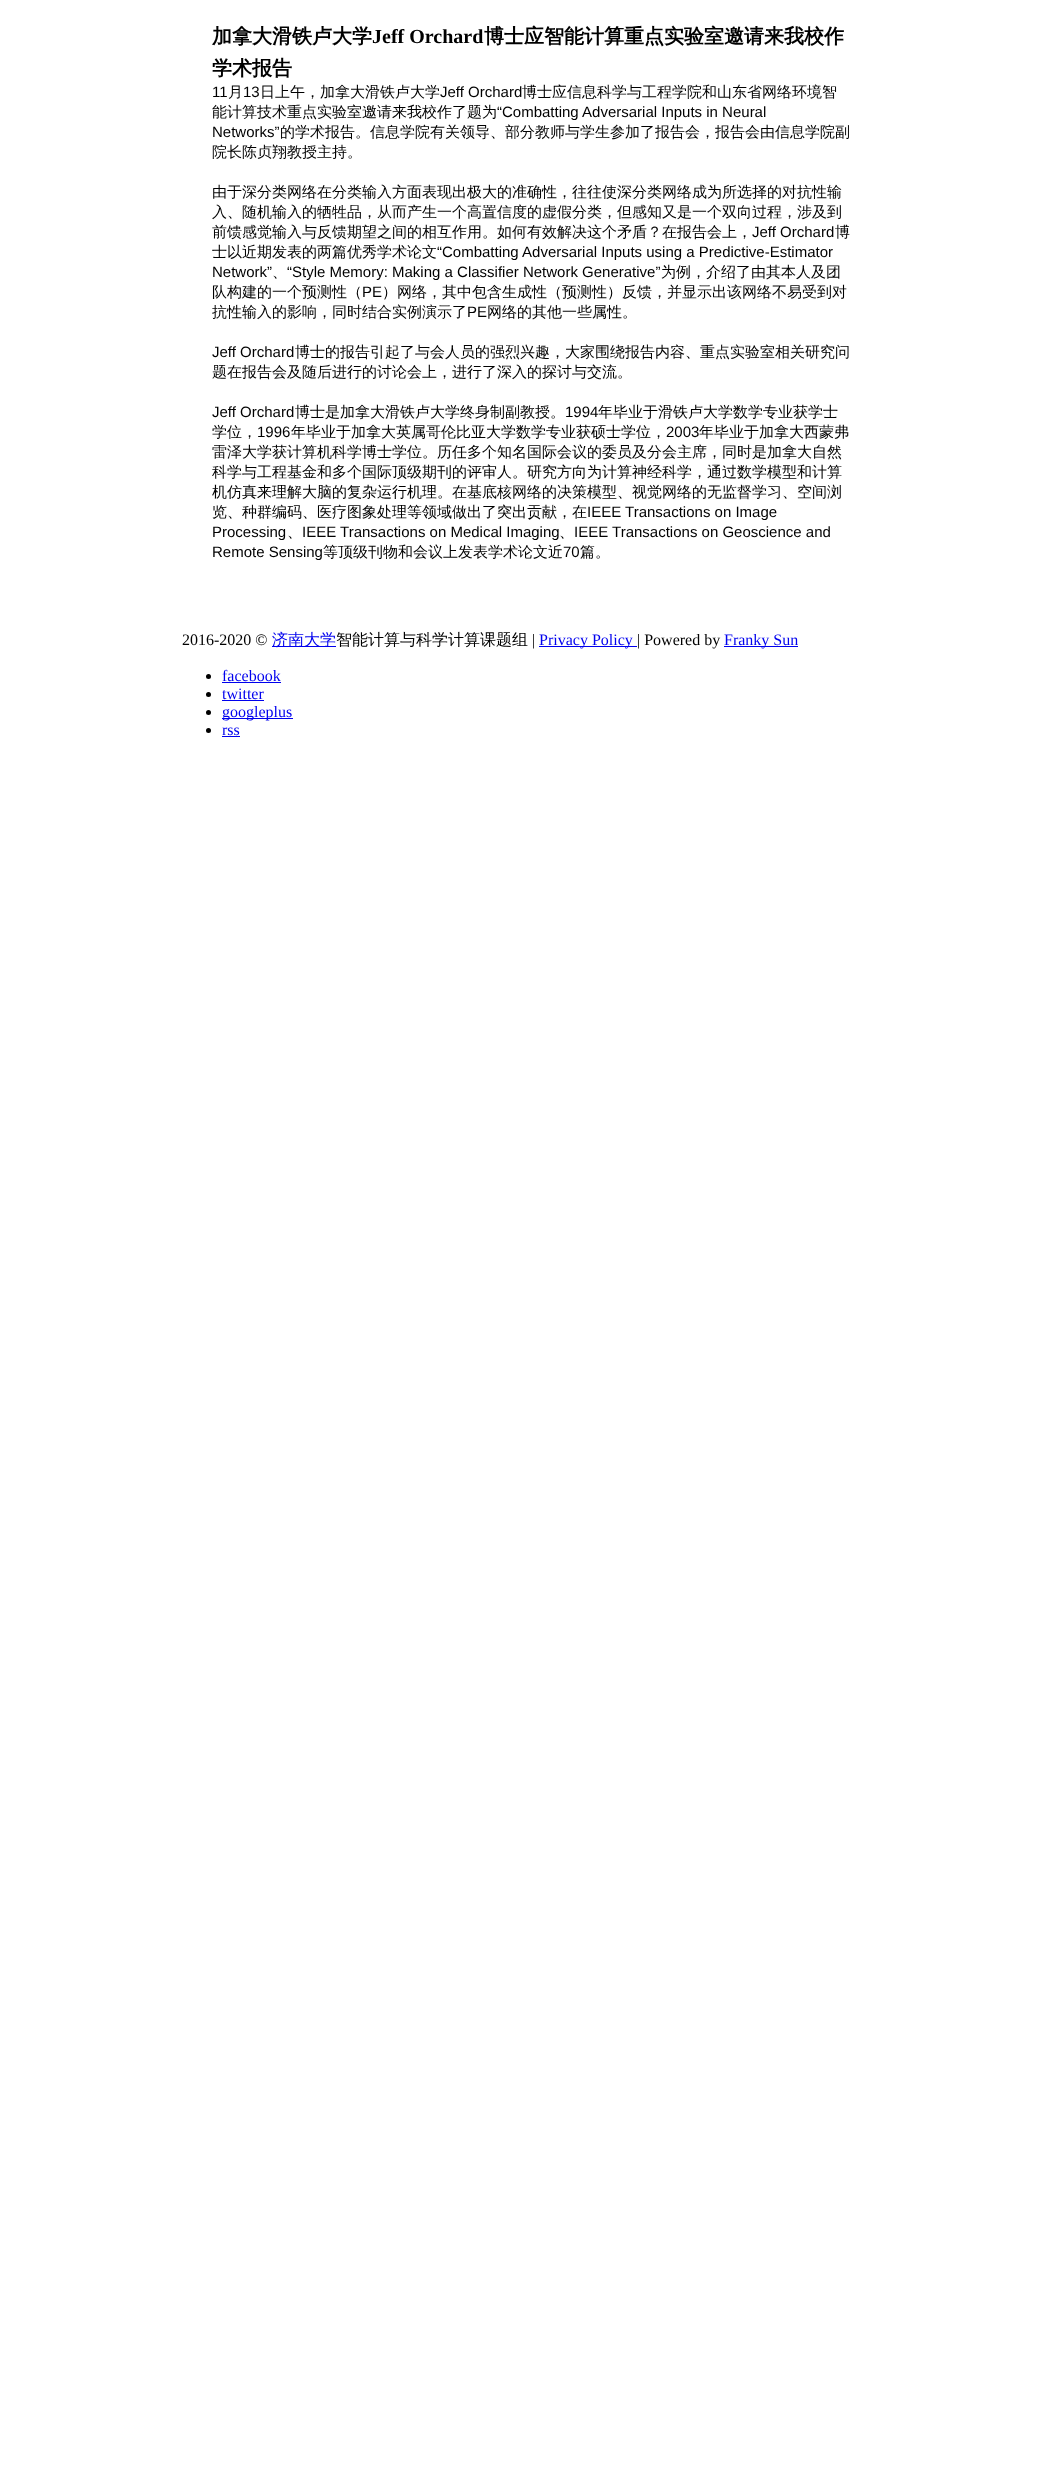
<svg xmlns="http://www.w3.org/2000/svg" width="1063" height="2474">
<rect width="100%" height="100%" fill="#fff"/>
<text x="212" y="43" style="font-family:WenQuanYi Zen Hei;font-size:20px;font-weight:bold;fill:#000">加拿大滑铁卢大学</text>
<text x="372" y="43" style="font-family:Liberation Serif;font-size:20px;font-weight:bold;fill:#000">Jeff Orchard</text>
<text x="484" y="43" style="font-family:WenQuanYi Zen Hei;font-size:20px;font-weight:bold;fill:#000">博士应智能计算重点实验室邀请来我校作</text>
<text x="212" y="75" style="font-family:WenQuanYi Zen Hei;font-size:20px;font-weight:bold;fill:#000">学术报告</text>
<text x="212" y="97" style="font-family:Liberation Sans;font-size:15px;fill:#000">11</text>
<text x="228" y="97" style="font-family:WenQuanYi Zen Hei;font-size:15px;font-weight:500;fill:#000">月</text>
<text x="243" y="97" style="font-family:Liberation Sans;font-size:15px;fill:#000">13</text>
<text x="260" y="97" style="font-family:WenQuanYi Zen Hei;font-size:15px;font-weight:500;fill:#000">日上午，加拿大滑铁卢大学</text>
<text x="440" y="97" style="font-family:Liberation Sans;font-size:15px;fill:#000">Jeff Orchard</text>
<text x="522" y="97" style="font-family:WenQuanYi Zen Hei;font-size:15px;font-weight:500;fill:#000">博士应信息科学与工程学院和山东省网络环境智</text>
<text x="212" y="117" style="font-family:WenQuanYi Zen Hei;font-size:15px;font-weight:500;fill:#000">能计算技术重点实验室邀请来我校作了题为</text>
<text x="497" y="117" style="font-family:Liberation Sans;font-size:15px;fill:#000">“Combatting Adversarial Inputs in Neural</text>
<text x="212" y="137" style="font-family:Liberation Sans;font-size:15px;fill:#000">Networks”</text>
<text x="280" y="137" style="font-family:WenQuanYi Zen Hei;font-size:15px;font-weight:500;fill:#000">的学术报告。信息学院有关领导、部分教师与学生参加了报告会，报告会由信息学院副</text>
<text x="212" y="157" style="font-family:WenQuanYi Zen Hei;font-size:15px;font-weight:500;fill:#000">院长陈贞翔教授主持。</text>
<text x="212" y="197" style="font-family:WenQuanYi Zen Hei;font-size:15px;font-weight:500;fill:#000">由于深分类网络在分类输入方面表现出极大的准确性，往往使深分类网络成为所选择的对抗性输</text>
<text x="212" y="217" style="font-family:WenQuanYi Zen Hei;font-size:15px;font-weight:500;fill:#000">入、随机输入的牺牲品，从而产生一个高置信度的虚假分类，但感知又是一个双向过程，涉及到</text>
<text x="212" y="237" style="font-family:WenQuanYi Zen Hei;font-size:15px;font-weight:500;fill:#000">前馈感觉输入与反馈期望之间的相互作用。如何有效解决这个矛盾？在报告会上，</text>
<text x="752" y="237" style="font-family:Liberation Sans;font-size:15px;fill:#000">Jeff Orchard</text>
<text x="835" y="237" style="font-family:WenQuanYi Zen Hei;font-size:15px;font-weight:500;fill:#000">博</text>
<text x="212" y="257" style="font-family:WenQuanYi Zen Hei;font-size:15px;font-weight:500;fill:#000">士以近期发表的两篇优秀学术论文</text>
<text x="437" y="257" style="font-family:Liberation Sans;font-size:15px;fill:#000">“Combatting Adversarial Inputs using a Predictive-Estimator</text>
<text x="212" y="277" style="font-family:Liberation Sans;font-size:15px;fill:#000">Network”</text>
<text x="272" y="277" style="font-family:WenQuanYi Zen Hei;font-size:15px;font-weight:500;fill:#000">、</text>
<text x="287" y="277" style="font-family:Liberation Sans;font-size:15px;fill:#000">“Style Memory: Making a Classifier Network Generative”</text>
<text x="661" y="277" style="font-family:WenQuanYi Zen Hei;font-size:15px;font-weight:500;fill:#000">为例，介绍了由其本人及团</text>
<text x="212" y="297" style="font-family:WenQuanYi Zen Hei;font-size:15px;font-weight:500;fill:#000">队构建的一个预测性（</text>
<text x="362" y="297" style="font-family:Liberation Sans;font-size:15px;fill:#000">PE</text>
<text x="382" y="297" style="font-family:WenQuanYi Zen Hei;font-size:15px;font-weight:500;fill:#000">）网络，其中包含生成性（预测性）反馈，并显示出该网络不易受到对</text>
<text x="212" y="317" style="font-family:WenQuanYi Zen Hei;font-size:15px;font-weight:500;fill:#000">抗性输入的影响，同时结合实例演示了</text>
<text x="467" y="317" style="font-family:Liberation Sans;font-size:15px;fill:#000">PE</text>
<text x="487" y="317" style="font-family:WenQuanYi Zen Hei;font-size:15px;font-weight:500;fill:#000">网络的其他一些属性。</text>
<text x="212" y="357" style="font-family:Liberation Sans;font-size:15px;fill:#000">Jeff Orchard</text>
<text x="295" y="357" style="font-family:WenQuanYi Zen Hei;font-size:15px;font-weight:500;fill:#000">博士的报告引起了与会人员的强烈兴趣，大家围绕报告内容、重点实验室相关研究问</text>
<text x="212" y="377" style="font-family:WenQuanYi Zen Hei;font-size:15px;font-weight:500;fill:#000">题在报告会及随后进行的讨论会上，进行了深入的探讨与交流。</text>
<text x="212" y="417" style="font-family:Liberation Sans;font-size:15px;fill:#000">Jeff Orchard</text>
<text x="295" y="417" style="font-family:WenQuanYi Zen Hei;font-size:15px;font-weight:500;fill:#000">博士是加拿大滑铁卢大学终身制副教授。</text>
<text x="565" y="417" style="font-family:Liberation Sans;font-size:15px;fill:#000">1994</text>
<text x="598" y="417" style="font-family:WenQuanYi Zen Hei;font-size:15px;font-weight:500;fill:#000">年毕业于滑铁卢大学数学专业获学士</text>
<text x="212" y="437" style="font-family:WenQuanYi Zen Hei;font-size:15px;font-weight:500;fill:#000">学位，</text>
<text x="257" y="437" style="font-family:Liberation Sans;font-size:15px;fill:#000">1996</text>
<text x="291" y="437" style="font-family:WenQuanYi Zen Hei;font-size:15px;font-weight:500;fill:#000">年毕业于加拿大英属哥伦比亚大学数学专业获硕士学位，</text>
<text x="666" y="437" style="font-family:Liberation Sans;font-size:15px;fill:#000">2003</text>
<text x="699" y="437" style="font-family:WenQuanYi Zen Hei;font-size:15px;font-weight:500;fill:#000">年毕业于加拿大西蒙弗</text>
<text x="212" y="457" style="font-family:WenQuanYi Zen Hei;font-size:15px;font-weight:500;fill:#000">雷泽大学获计算机科学博士学位。历任多个知名国际会议的委员及分会主席，同时是加拿大自然</text>
<text x="212" y="477" style="font-family:WenQuanYi Zen Hei;font-size:15px;font-weight:500;fill:#000">科学与工程基金和多个国际顶级期刊的评审人。研究方向为计算神经科学，通过数学模型和计算</text>
<text x="212" y="497" style="font-family:WenQuanYi Zen Hei;font-size:15px;font-weight:500;fill:#000">机仿真来理解大脑的复杂运行机理。在基底核网络的决策模型、视觉网络的无监督学习、空间浏</text>
<text x="212" y="517" style="font-family:WenQuanYi Zen Hei;font-size:15px;font-weight:500;fill:#000">览、种群编码、医疗图象处理等领域做出了突出贡献，在</text>
<text x="587" y="517" style="font-family:Liberation Sans;font-size:15px;fill:#000">IEEE Transactions on Image</text>
<text x="212" y="537" style="font-family:Liberation Sans;font-size:15px;fill:#000">Processing</text>
<text x="287" y="537" style="font-family:WenQuanYi Zen Hei;font-size:15px;font-weight:500;fill:#000">、</text>
<text x="302" y="537" style="font-family:Liberation Sans;font-size:15px;fill:#000">IEEE Transactions on Medical Imaging</text>
<text x="559" y="537" style="font-family:WenQuanYi Zen Hei;font-size:15px;font-weight:500;fill:#000">、</text>
<text x="574" y="537" style="font-family:Liberation Sans;font-size:15px;fill:#000">IEEE Transactions on Geoscience and</text>
<text x="212" y="557" style="font-family:Liberation Sans;font-size:15px;fill:#000">Remote Sensing</text>
<text x="323" y="557" style="font-family:WenQuanYi Zen Hei;font-size:15px;font-weight:500;fill:#000">等顶级刊物和会议上发表学术论文近</text>
<text x="563" y="557" style="font-family:Liberation Sans;font-size:15px;fill:#000">70</text>
<text x="580" y="557" style="font-family:WenQuanYi Zen Hei;font-size:15px;font-weight:500;fill:#000">篇。</text>
<text x="182" y="645" style="font-family:Liberation Serif;font-size:16px;fill:#000">2016-2020 ©</text>
<rect x="272" y="646" width="64" height="1" fill="#00e"/>
<text x="272" y="645" style="font-family:WenQuanYi Zen Hei;font-size:16px;font-weight:500;fill:#00e">济南大学</text>
<text x="336" y="645" style="font-family:WenQuanYi Zen Hei;font-size:16px;font-weight:500;fill:#000">智能计算与科学计算课题组</text>
<text x="532" y="645" style="font-family:Liberation Serif;font-size:16px;fill:#000">|</text>
<rect x="539" y="646" width="98" height="1" fill="#00e"/>
<text x="539" y="645" style="font-family:Liberation Serif;font-size:16px;fill:#00e">Privacy Policy</text>
<text x="637" y="645" style="font-family:Liberation Serif;font-size:16px;fill:#000">| Powered by</text>
<rect x="724" y="646" width="74" height="1" fill="#00e"/>
<text x="724" y="645" style="font-family:Liberation Serif;font-size:16px;fill:#00e">Franky Sun</text>
<circle cx="208.5" cy="676.5" r="2.5" fill="#000"/>
<text x="222" y="681" style="font-family:Liberation Serif;font-size:16px;fill:#00e">facebook</text>
<rect x="222" y="682" width="59" height="1" fill="#00e"/>
<circle cx="208.5" cy="694.5" r="2.5" fill="#000"/>
<text x="222" y="699" style="font-family:Liberation Serif;font-size:16px;fill:#00e">twitter</text>
<rect x="222" y="700" width="42" height="1" fill="#00e"/>
<circle cx="208.5" cy="712.5" r="2.5" fill="#000"/>
<rect x="222" y="718" width="71" height="1" fill="#00e"/>
<text x="222" y="717" style="font-family:Liberation Serif;font-size:16px;fill:#00e">googleplus</text>
<circle cx="208.5" cy="730.5" r="2.5" fill="#000"/>
<text x="222" y="735" style="font-family:Liberation Serif;font-size:16px;fill:#00e">rss</text>
<rect x="222" y="736" width="18" height="1" fill="#00e"/>
</svg>
